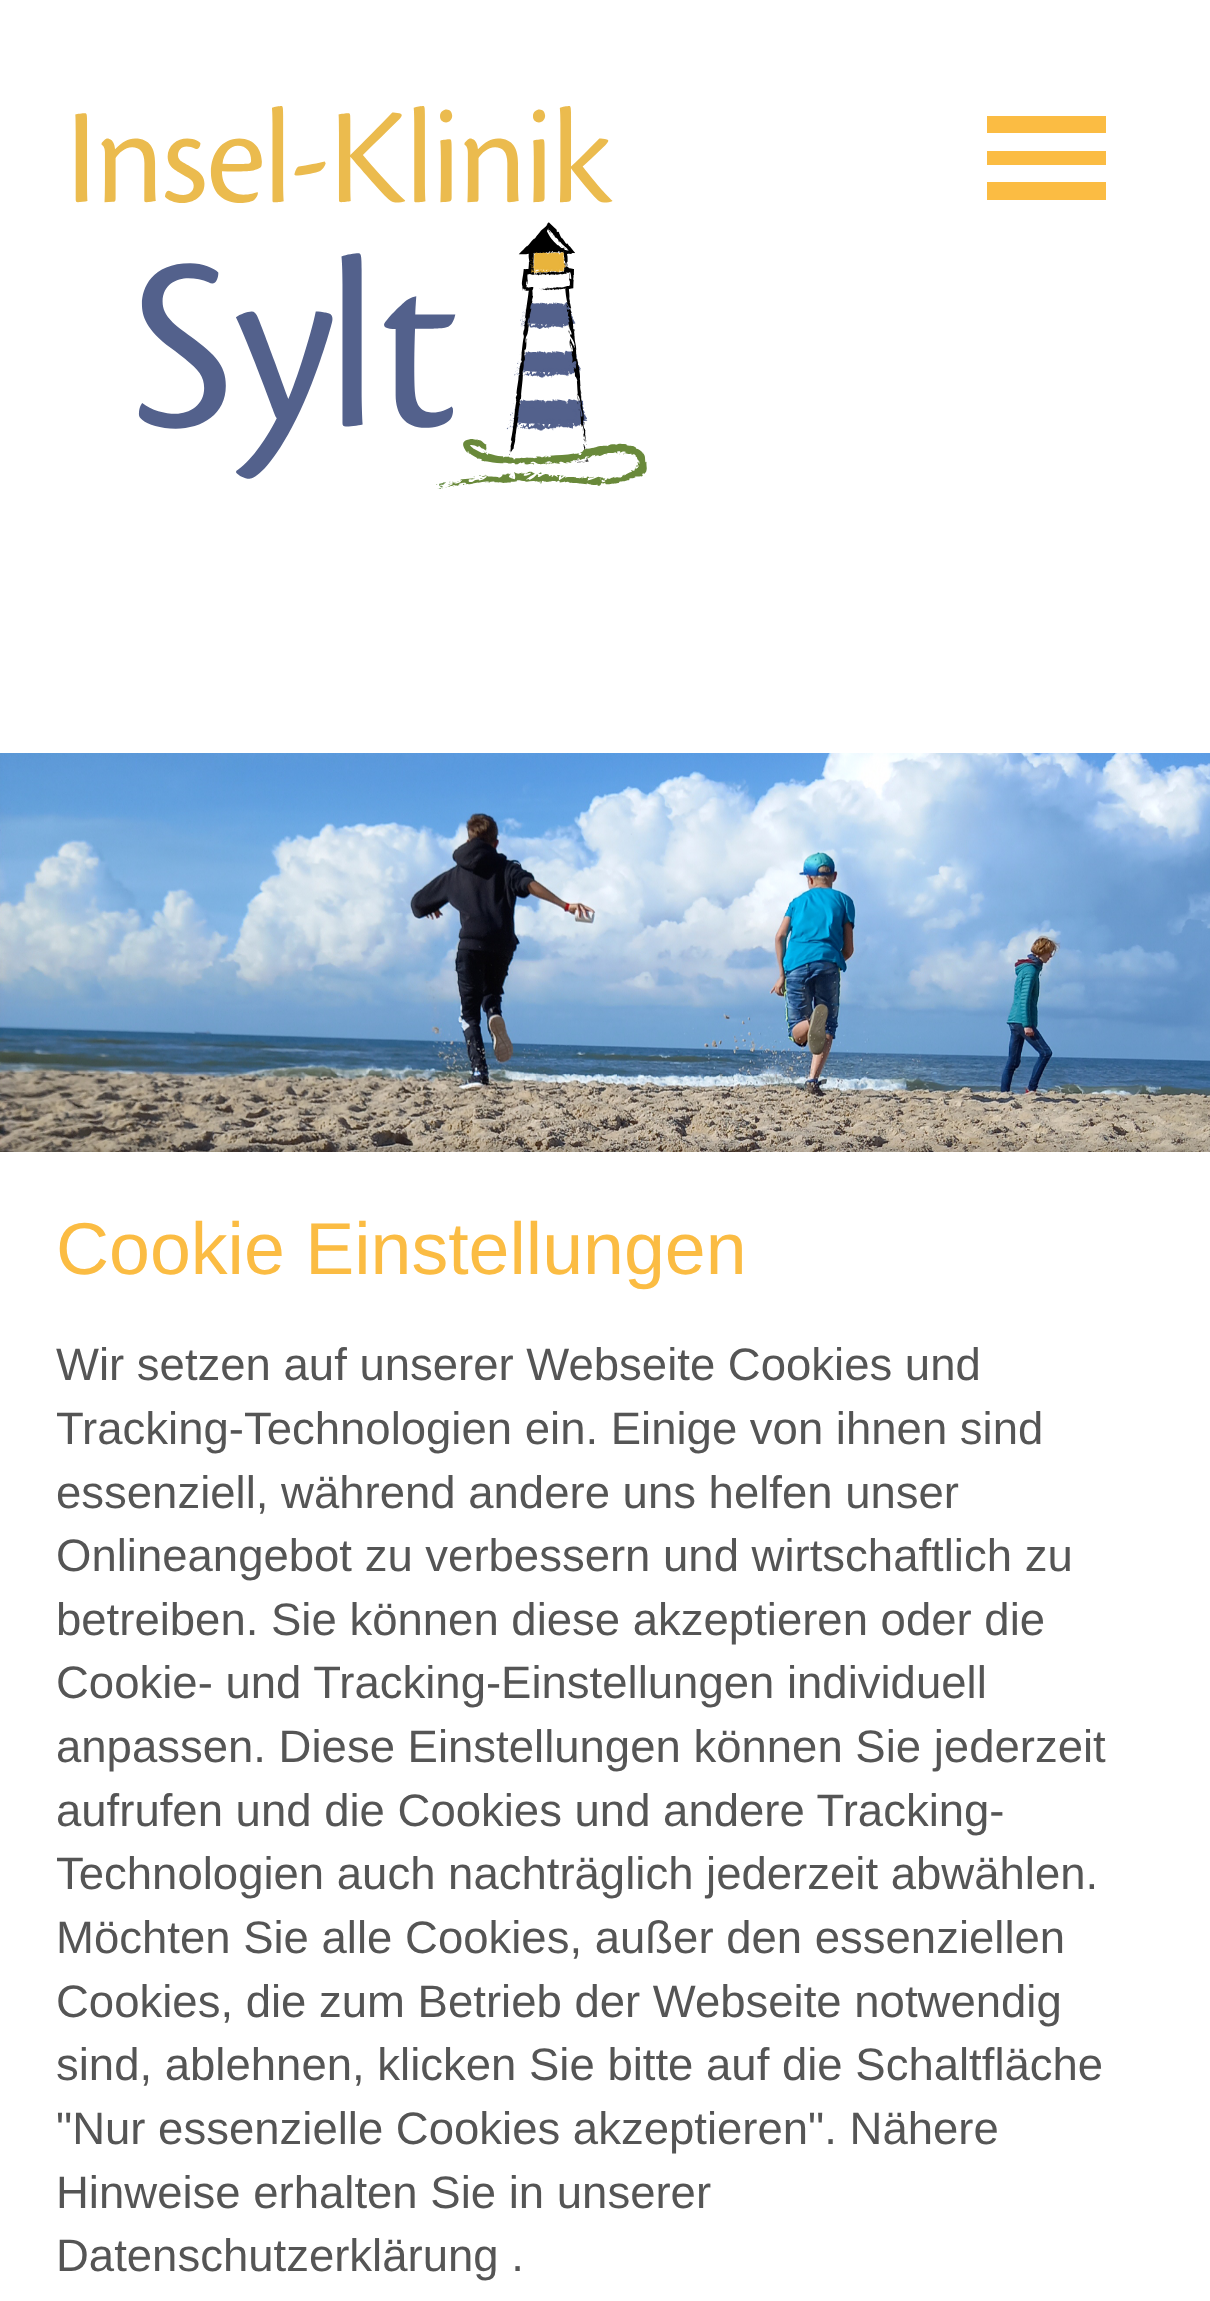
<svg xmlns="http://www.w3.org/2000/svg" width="1210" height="2301">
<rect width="100%" height="100%" fill="#fff"/>
<image x="75" y="106" width="572" height="383" href="media/1.png"/>
<image x="0" y="753" width="1210" height="399" href="media/2.png"/>
<rect x="987" y="116" width="119" height="17" fill="#fbbc43"/>
<rect x="987" y="151" width="119" height="14" fill="#fbbc43"/>
<rect x="987" y="182" width="119" height="18" fill="#fbbc43"/>
<rect y="1152" width="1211" height="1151" fill="#0000004d" filter="blur(10.5px)"/>
<rect y="1152" width="1210" height="1149" fill="#fff"/>
<text x="56" y="1274" style="font-family:Arimo;font-size:73.5px;fill:#fbbc43">Cookie Einstellungen</text>
<text x="56" y="1380" style="font-family:Arimo;font-size:45.5px;fill:#555">Wir setzen auf unserer Webseite Cookies und</text>
<text x="56" y="1444" style="font-family:Arimo;font-size:45.5px;fill:#555">Tracking-Technologien ein. Einige von ihnen sind</text>
<text x="56" y="1508" style="font-family:Arimo;font-size:45.5px;fill:#555">essenziell, während andere uns helfen unser</text>
<text x="56" y="1571" style="font-family:Arimo;font-size:45.5px;fill:#555">Onlineangebot zu verbessern und wirtschaftlich zu</text>
<text x="56" y="1635" style="font-family:Arimo;font-size:45.5px;fill:#555">betreiben. Sie können diese akzeptieren oder die</text>
<text x="56" y="1698" style="font-family:Arimo;font-size:45.5px;fill:#555">Cookie- und Tracking-Einstellungen individuell</text>
<text x="56" y="1762" style="font-family:Arimo;font-size:45.5px;fill:#555">anpassen. Diese Einstellungen können Sie jederzeit</text>
<text x="56" y="1826" style="font-family:Arimo;font-size:45.5px;fill:#555">aufrufen und die Cookies und andere Tracking-</text>
<text x="56" y="1889" style="font-family:Arimo;font-size:45.5px;fill:#555">Technologien auch nachträglich jederzeit abwählen.</text>
<text x="56" y="1953" style="font-family:Arimo;font-size:45.5px;fill:#555">Möchten Sie alle Cookies, außer den essenziellen</text>
<text x="56" y="2017" style="font-family:Arimo;font-size:45.5px;fill:#555">Cookies, die zum Betrieb der Webseite notwendig</text>
<text x="56" y="2080" style="font-family:Arimo;font-size:45.5px;fill:#555">sind, ablehnen, klicken Sie bitte auf die Schaltfläche</text>
<text x="56" y="2144" style="font-family:Arimo;font-size:45.5px;fill:#555">"Nur essenzielle Cookies akzeptieren". Nähere</text>
<text x="56" y="2208" style="font-family:Arimo;font-size:45.5px;fill:#555">Hinweise erhalten Sie in unserer</text>
<text x="56" y="2271" style="font-family:Arimo;font-size:45.5px;fill:#555">Datenschutzerklärung .</text>
</svg>
